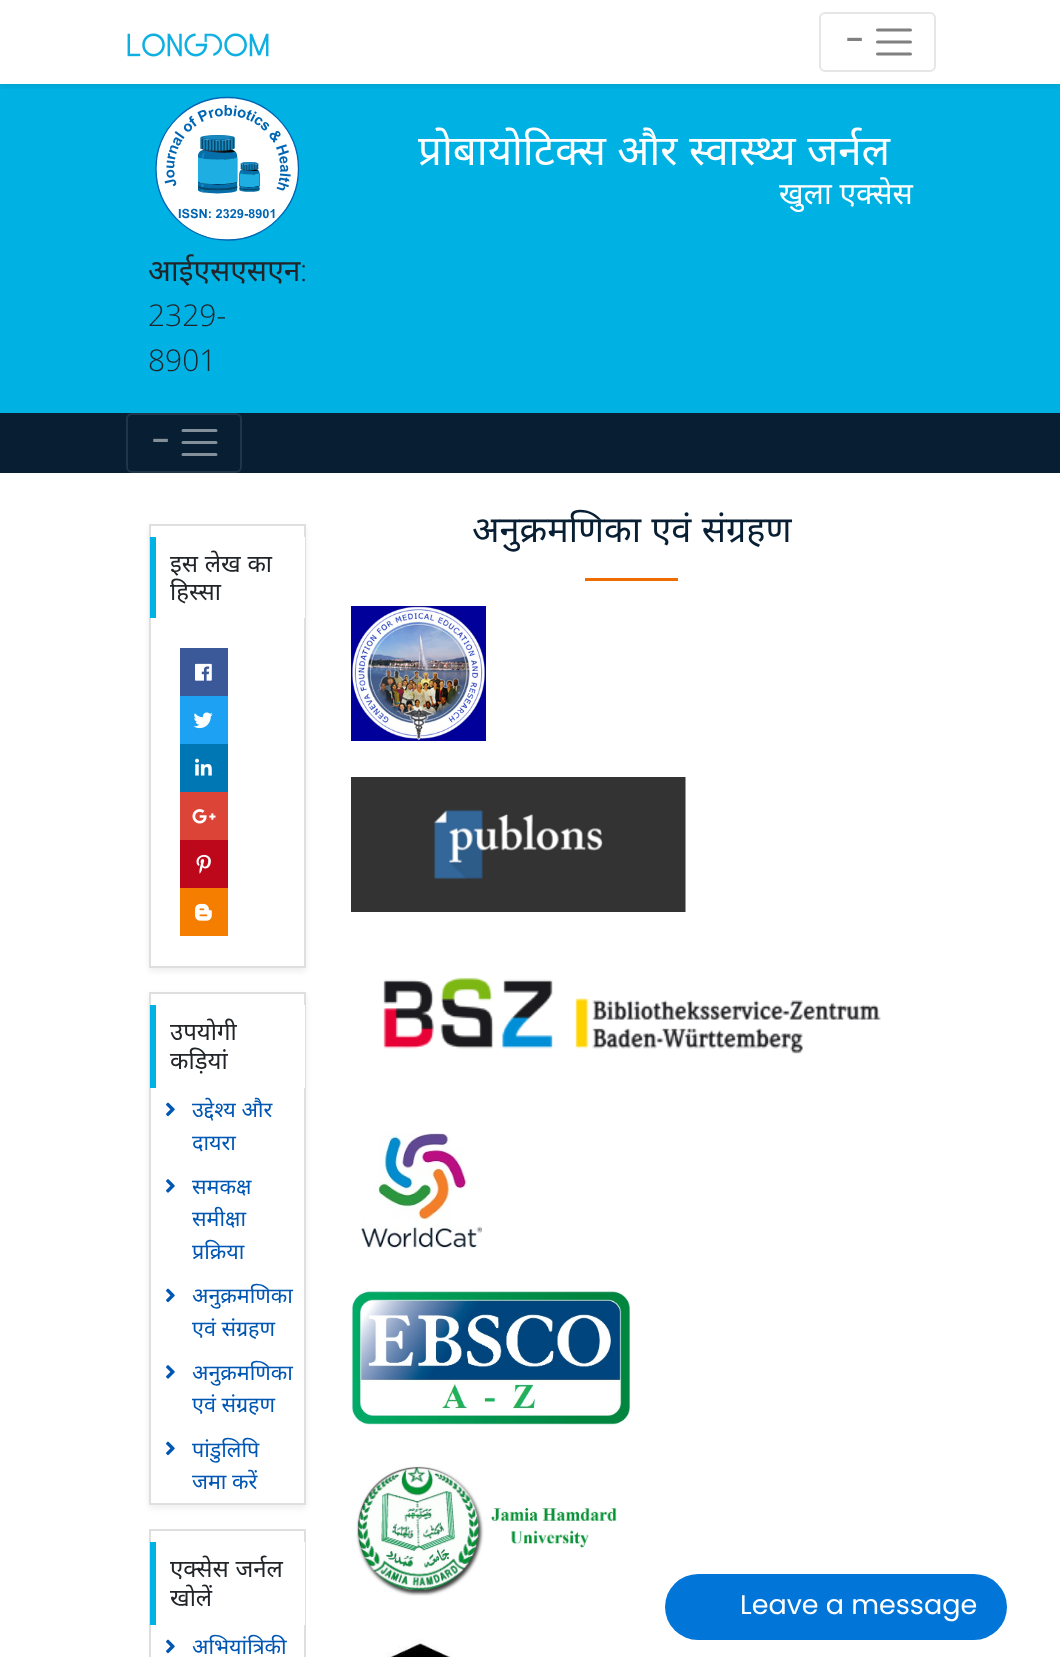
<svg xmlns="http://www.w3.org/2000/svg" width="1060" height="1657">
<defs>
<clipPath id="clip1"><rect x="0" y="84" width="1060" height="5"/></clipPath>
</defs>
<rect width="100%" height="100%" fill="#fff"/>
<rect y="84" width="1060" height="329" fill="#00b1e4"/>
<g clip-path="url(#clip1)">
<rect y="3" width="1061" height="84" fill="#00000012" filter="blur(3px)"/>
</g>
<image x="127" y="33" width="142" height="24" href="media/1.png"/>
<rect x="820" y="13" width="115" height="58" rx="5" fill="none" stroke="#e6e6e6" stroke-width="2"/>
<text x="846" y="50" style="font-family:Open Sans;font-size:30px;font-weight:bold;fill:#808080">−</text>
<path d="M877.5 30h33m-33 12h33m-33 12h33" fill="none" stroke="#808080" stroke-width="3" stroke-linecap="round"/>
<image x="155" y="96" width="145" height="145" href="media/2.png"/>
<text x="418" y="165" word-spacing="0.5" style="font-family:Noto Sans;font-size:42px;fill:#fff">प्रोबायोटिक्स और स्वास्थ्य जर्नल</text>
<text x="779" y="204" style="font-family:Noto Sans;font-size:30px;fill:#fff">खुला एक्सेस</text>
<text x="148" y="281" style="font-family:Noto Sans;font-size:30px;fill:#212529">आईएसएसएन</text>
<text x="300" y="281" style="font-family:Open Sans;font-size:30px;font-weight:300;fill:#212529">:</text>
<text x="148" y="326" style="font-family:Open Sans;font-size:30px;font-weight:300;fill:#212529">2329-</text>
<text x="148" y="371" style="font-family:Open Sans;font-size:30px;font-weight:300;fill:#212529">8901</text>
<rect y="413" width="1060" height="60" fill="#071e33"/>
<rect x="127" y="414" width="114" height="58" rx="5" fill="none" stroke="#203547" stroke-width="2"/>
<text x="152" y="451" style="font-family:Open Sans;font-size:30px;font-weight:bold;fill:#838f99">−</text>
<path d="M183 430.5h33m-33 12h33m-33 12h33" fill="none" stroke="#838f99" stroke-width="3" stroke-linecap="round"/>
<text x="472" y="542" word-spacing="1" style="font-family:Noto Sans;font-size:36px;fill:#071e33">अनुक्रमणिका एवं संग्रहण</text>
<rect x="585" y="578" width="93" height="3" fill="#ef6c00"/>
<image x="351" y="606" width="135" height="135" href="media/3.png"/>
<image x="351" y="777" width="335" height="135" href="media/4.png"/>
<image x="383" y="977" width="498" height="77" href="media/5.png"/>
<image x="360" y="1133" width="122" height="115" href="media/6.png"/>
<image x="352" y="1291" width="278" height="134" href="media/7.png"/>
<image x="356" y="1466" width="261" height="130" href="media/8.png"/>
<image x="385" y="1639" width="67" height="18" href="media/9.png"/>
<rect x="149" y="527" width="157" height="444" fill="#00000012" filter="blur(3px)"/>
<rect x="150" y="525" width="155" height="442" fill="#fff" stroke="#dfdfdf" stroke-width="2"/>
<rect x="304" y="537" width="1" height="81" fill="#fff"/>
<rect x="150" y="537" width="6" height="81" fill="#00b1e4"/>
<text x="170" y="572" word-spacing="0.5" style="font-family:Noto Sans;font-size:24px;fill:#212529">इस लेख का</text>
<text x="170" y="600" style="font-family:Noto Sans;font-size:24px;fill:#212529">हिस्सा</text>
<rect x="180" y="648" width="48" height="48" fill="#3b5998"/>
<image x="195" y="663" width="17" height="18" href="media/10.png"/>
<rect x="180" y="696" width="48" height="48" fill="#1da1f2"/>
<image x="193" y="712" width="20" height="17" href="media/11.png"/>
<rect x="180" y="744" width="48" height="48" fill="#0077b5"/>
<image x="195" y="758" width="17" height="18" href="media/12.png"/>
<rect x="180" y="792" width="48" height="48" fill="#db4437"/>
<image x="192" y="809" width="24" height="15" href="media/13.png"/>
<rect x="180" y="840" width="48" height="48" fill="#bd081c"/>
<image x="196" y="854" width="15" height="20" href="media/14.png"/>
<rect x="180" y="888" width="48" height="48" fill="#f57d00"/>
<image x="195" y="903" width="17" height="18" href="media/15.png"/>
<rect x="149" y="995" width="157" height="513" fill="#00000012" filter="blur(3px)"/>
<rect x="150" y="993" width="155" height="511" fill="#fff" stroke="#dfdfdf" stroke-width="2"/>
<rect x="304" y="1005" width="1" height="83" fill="#fff"/>
<rect x="150" y="1005" width="6" height="83" fill="#00b1e4"/>
<text x="170" y="1040" style="font-family:Noto Sans;font-size:24px;fill:#212529">उपयोगी</text>
<text x="170" y="1069" style="font-family:Noto Sans;font-size:24px;fill:#212529">कड़ियां</text>
<image x="166" y="1102" width="9" height="15" href="media/16.png"/>
<text x="192" y="1117" style="font-family:Noto Sans;font-size:21.5px;fill:#0056b3">उद्देश्य और</text>
<text x="192" y="1150" style="font-family:Noto Sans;font-size:21.5px;fill:#0056b3">दायरा</text>
<image x="166" y="1179" width="9" height="14" href="media/17.png"/>
<text x="192" y="1194" style="font-family:Noto Sans;font-size:21.5px;fill:#0056b3">समकक्ष</text>
<text x="192" y="1226" style="font-family:Noto Sans;font-size:21.5px;fill:#0056b3">समीक्षा</text>
<text x="192" y="1259" style="font-family:Noto Sans;font-size:21.5px;fill:#0056b3">प्रक्रिया</text>
<image x="166" y="1288" width="9" height="15" href="media/16.png"/>
<text x="192" y="1303" style="font-family:Noto Sans;font-size:21.5px;fill:#0056b3">अनुक्रमणिका</text>
<text x="192" y="1336" style="font-family:Noto Sans;font-size:21.5px;fill:#0056b3">एवं संग्रहण</text>
<image x="166" y="1365" width="9" height="14" href="media/17.png"/>
<text x="192" y="1380" style="font-family:Noto Sans;font-size:21.5px;fill:#0056b3">अनुक्रमणिका</text>
<text x="192" y="1412" style="font-family:Noto Sans;font-size:21.5px;fill:#0056b3">एवं संग्रहण</text>
<image x="166" y="1441" width="9" height="15" href="media/16.png"/>
<text x="192" y="1457" style="font-family:Noto Sans;font-size:21.5px;fill:#0056b3">पांडुलिपि</text>
<text x="192" y="1489" style="font-family:Noto Sans;font-size:21.5px;fill:#0056b3">जमा करें</text>
<rect x="150" y="1530" width="155" height="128" fill="none" stroke="#dfdfdf" stroke-width="2"/>
<rect x="304" y="1542" width="1" height="83" fill="#fff"/>
<rect x="150" y="1542" width="6" height="83" fill="#00b1e4"/>
<text x="170" y="1577" word-spacing="0.5" style="font-family:Noto Sans;font-size:24px;fill:#212529">एक्सेस जर्नल</text>
<text x="170" y="1606" style="font-family:Noto Sans;font-size:24px;fill:#212529">खोलें</text>
<image x="166" y="1639" width="9" height="15" href="media/16.png"/>
<text x="192" y="1654" style="font-family:Noto Sans;font-size:21.5px;fill:#0056b3">अभियांत्रिकी</text>
<rect x="665" y="1574" width="342" height="66" rx="33" fill="#0275d8"/>
<text x="740" y="1614" style="font-family:Poppins;font-size:27px;fill:#fff">Leave a message</text>
</svg>
